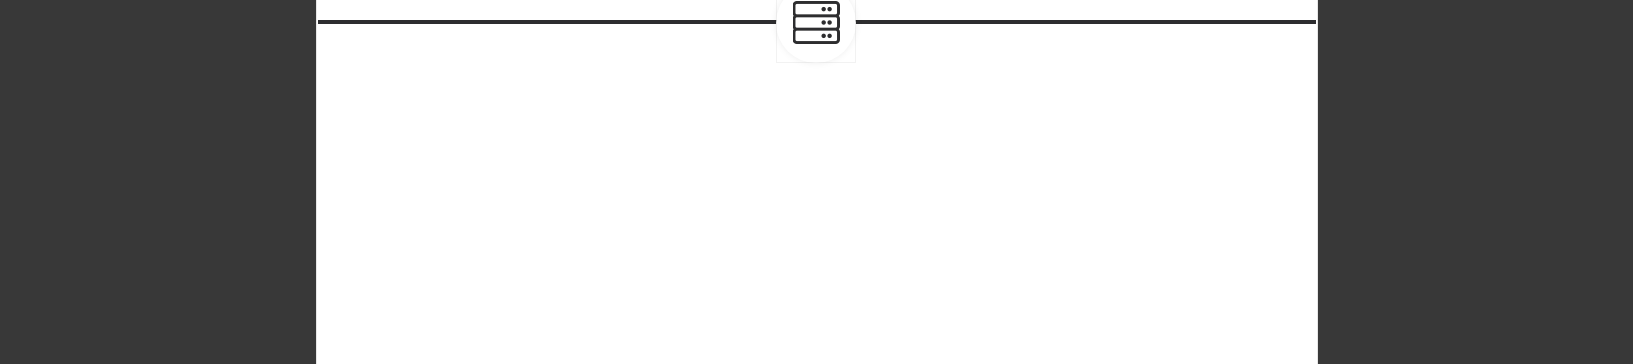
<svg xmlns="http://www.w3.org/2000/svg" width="1633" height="364">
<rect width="100%" height="100%" fill="#383838"/>
<rect x="316.5" y="-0.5" width="1001" height="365" fill="#fff" stroke="#e6e6e6"/>
<rect x="318" y="20" width="998" height="4" fill="#2d2d2f"/>
<rect x="776" y="-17" width="80" height="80" rx="40" fill="#00000012" filter="blur(3px)"/>
<circle cx="816" cy="23" r="40" fill="#fff"/>
<rect x="776.5" y="-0.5" width="79" height="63" fill="none" stroke="#0000000d"/>
<image x="793" y="1" width="47" height="43" href="media/1.png"/>
</svg>
